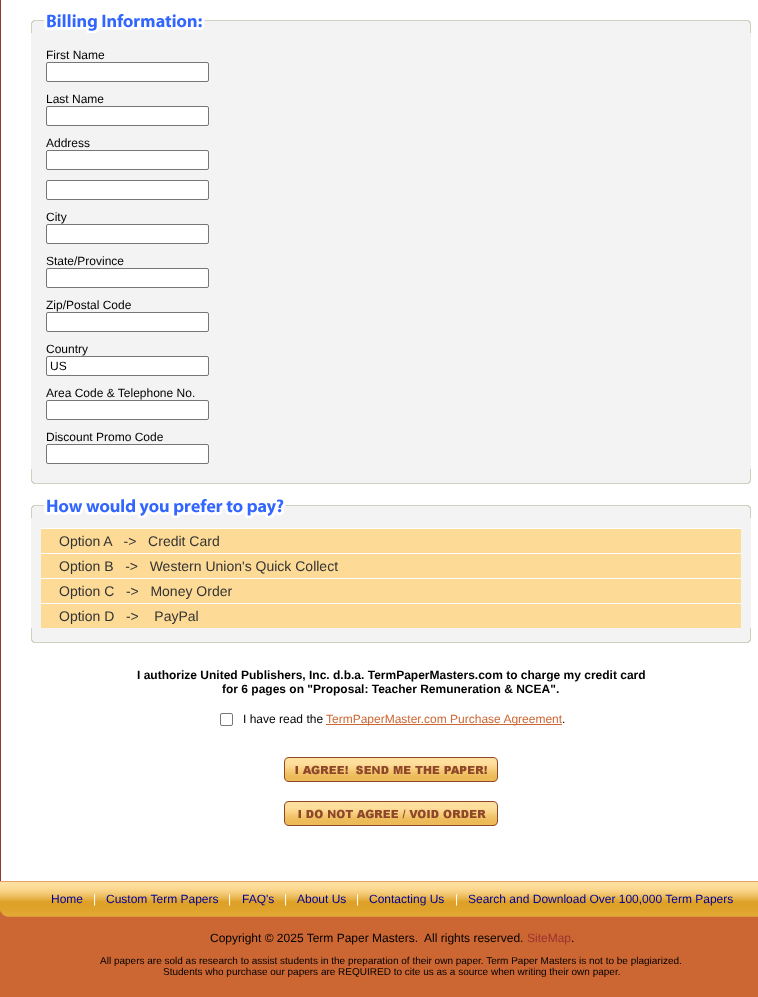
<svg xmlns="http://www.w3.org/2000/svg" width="758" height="997">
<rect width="100%" height="100%" fill="#c63"/>
<rect width="1" height="881" fill="#933"/>
<rect x="1" width="757" height="881" fill="#fff"/>
<image x="31" y="14" width="720" height="19" href="media/1.png"/>
<rect x="31" y="33" width="720" height="436" fill="#f3f3f3"/>
<text x="46" y="59" style="font-family:Liberation Sans;font-size:12px;fill:#000">First Name</text>
<rect x="46.5" y="62.5" width="162" height="19" rx="1.5" fill="#fff" stroke="#767676"/>
<text x="46" y="103" style="font-family:Liberation Sans;font-size:12px;fill:#000">Last Name</text>
<rect x="46.5" y="106.5" width="162" height="19" rx="1.5" fill="#fff" stroke="#767676"/>
<text x="46" y="147" style="font-family:Liberation Sans;font-size:12px;fill:#000">Address</text>
<rect x="46.5" y="150.5" width="162" height="19" rx="1.5" fill="#fff" stroke="#767676"/>
<rect x="46.5" y="180.5" width="162" height="19" rx="1.5" fill="#fff" stroke="#767676"/>
<text x="46" y="221" style="font-family:Liberation Sans;font-size:12px;fill:#000">City</text>
<rect x="46.5" y="224.5" width="162" height="19" rx="1.5" fill="#fff" stroke="#767676"/>
<text x="46" y="265" style="font-family:Liberation Sans;font-size:12px;fill:#000">State/Province</text>
<rect x="46.5" y="268.5" width="162" height="19" rx="1.5" fill="#fff" stroke="#767676"/>
<text x="46" y="309" style="font-family:Liberation Sans;font-size:12px;fill:#000">Zip/Postal Code</text>
<rect x="46.5" y="312.5" width="162" height="19" rx="1.5" fill="#fff" stroke="#767676"/>
<text x="46" y="353" style="font-family:Liberation Sans;font-size:12px;fill:#000">Country</text>
<rect x="46.5" y="356.5" width="162" height="19" rx="1.5" fill="#fff" stroke="#767676"/>
<text x="50" y="370" style="font-family:Liberation Sans;font-size:12px;fill:#000">US</text>
<text x="46" y="397" style="font-family:Liberation Sans;font-size:12px;fill:#000">Area Code &amp; Telephone No.</text>
<rect x="46.5" y="400.5" width="162" height="19" rx="1.5" fill="#fff" stroke="#767676"/>
<text x="46" y="441" style="font-family:Liberation Sans;font-size:12px;fill:#000">Discount Promo Code</text>
<rect x="46.5" y="444.5" width="162" height="19" rx="1.5" fill="#fff" stroke="#767676"/>
<image x="31" y="469" width="720" height="15" href="media/2.png"/>
<image x="31" y="499" width="720" height="19" href="media/3.png"/>
<rect x="31" y="518" width="720" height="110" fill="#f3f3f3"/>
<rect x="41" y="529" width="700" height="24" fill="#fddb97"/>
<rect x="41" y="528" width="700" height="1" fill="#fff"/>
<text x="59" y="546" style="font-family:Liberation Sans;font-size:14px;fill:#333" xml:space="preserve">Option A   -&gt;   Credit Card</text>
<rect x="41" y="554" width="700" height="24" fill="#fddb97"/>
<rect x="41" y="553" width="700" height="1" fill="#fff"/>
<text x="59" y="571" style="font-family:Liberation Sans;font-size:14px;fill:#333" xml:space="preserve">Option B   -&gt;   Western Union's Quick Collect</text>
<rect x="41" y="579" width="700" height="24" fill="#fddb97"/>
<rect x="41" y="578" width="700" height="1" fill="#fff"/>
<text x="59" y="596" style="font-family:Liberation Sans;font-size:14px;fill:#333" xml:space="preserve">Option C   -&gt;   Money Order</text>
<rect x="41" y="604" width="700" height="24" fill="#fddb97"/>
<rect x="41" y="603" width="700" height="1" fill="#fff"/>
<text x="59" y="621" style="font-family:Liberation Sans;font-size:14px;fill:#333" xml:space="preserve">Option D   -&gt;    PayPal</text>
<image x="31" y="628" width="720" height="15" href="media/2.png"/>
<text x="137" y="679" style="font-family:Liberation Sans;font-size:12px;font-weight:bold;fill:#000">I authorize United Publishers, Inc. d.b.a. TermPaperMasters.com to charge my credit card</text>
<text x="222" y="693" style="font-family:Liberation Sans;font-size:12px;font-weight:bold;fill:#000">for 6 pages on "Proposal: Teacher Remuneration &amp; NCEA".</text>
<rect x="220.5" y="713.5" width="12" height="12" rx="1.5" fill="none" stroke="#767676"/>
<text x="243" y="723" style="font-family:Liberation Sans;font-size:12px;fill:#000">I have read the</text>
<rect x="326" y="724" width="236" height="1" fill="#c63"/>
<text x="326" y="723" style="font-family:Liberation Sans;font-size:12px;fill:#c63">TermPaperMaster.com Purchase Agreement</text>
<text x="562" y="723" style="font-family:Liberation Sans;font-size:12px;fill:#000">.</text>
<image x="284" y="757" width="214" height="25" href="media/4.png"/>
<image x="284" y="801" width="214" height="25" href="media/5.png"/>
<image x="0" y="881" width="758" height="36" href="media/6.png"/>
<text x="51" y="903" style="font-family:Liberation Sans;font-size:12px;fill:#009">Home</text>
<text x="93" y="903" style="font-family:Liberation Sans;font-size:12px;fill:#fff">|</text>
<text x="106" y="903" style="font-family:Liberation Sans;font-size:12px;fill:#009">Custom Term Papers</text>
<text x="228" y="903" style="font-family:Liberation Sans;font-size:12px;fill:#fff">|</text>
<text x="242" y="903" style="font-family:Liberation Sans;font-size:12px;fill:#009">FAQ's</text>
<text x="284" y="903" style="font-family:Liberation Sans;font-size:12px;fill:#fff">|</text>
<text x="297" y="903" style="font-family:Liberation Sans;font-size:12px;fill:#009">About Us</text>
<text x="356" y="903" style="font-family:Liberation Sans;font-size:12px;fill:#fff">|</text>
<text x="369" y="903" style="font-family:Liberation Sans;font-size:12px;fill:#009">Contacting Us</text>
<text x="455" y="903" style="font-family:Liberation Sans;font-size:12px;fill:#fff">|</text>
<text x="468" y="903" style="font-family:Liberation Sans;font-size:12px;fill:#009">Search and Download Over 100,000 Term Papers</text>
<text x="210" y="942" style="font-family:Liberation Sans;font-size:12px;fill:#000" xml:space="preserve">Copyright © 2025 Term Paper Masters.  All rights reserved.</text>
<text x="527" y="942" style="font-family:Liberation Sans;font-size:12px;fill:#933">SiteMap</text>
<text x="571" y="942" style="font-family:Liberation Sans;font-size:12px;fill:#000">.</text>
<text x="100" y="964" style="font-family:Liberation Sans;font-size:10px;fill:#000">All papers are sold as research to assist students in the preparation of their own paper. Term Paper Masters is not to be plagiarized.</text>
<text x="163" y="975" style="font-family:Liberation Sans;font-size:10px;fill:#000">Students who purchase our papers are REQUIRED to cite us as a source when writing their own paper.</text>
</svg>
